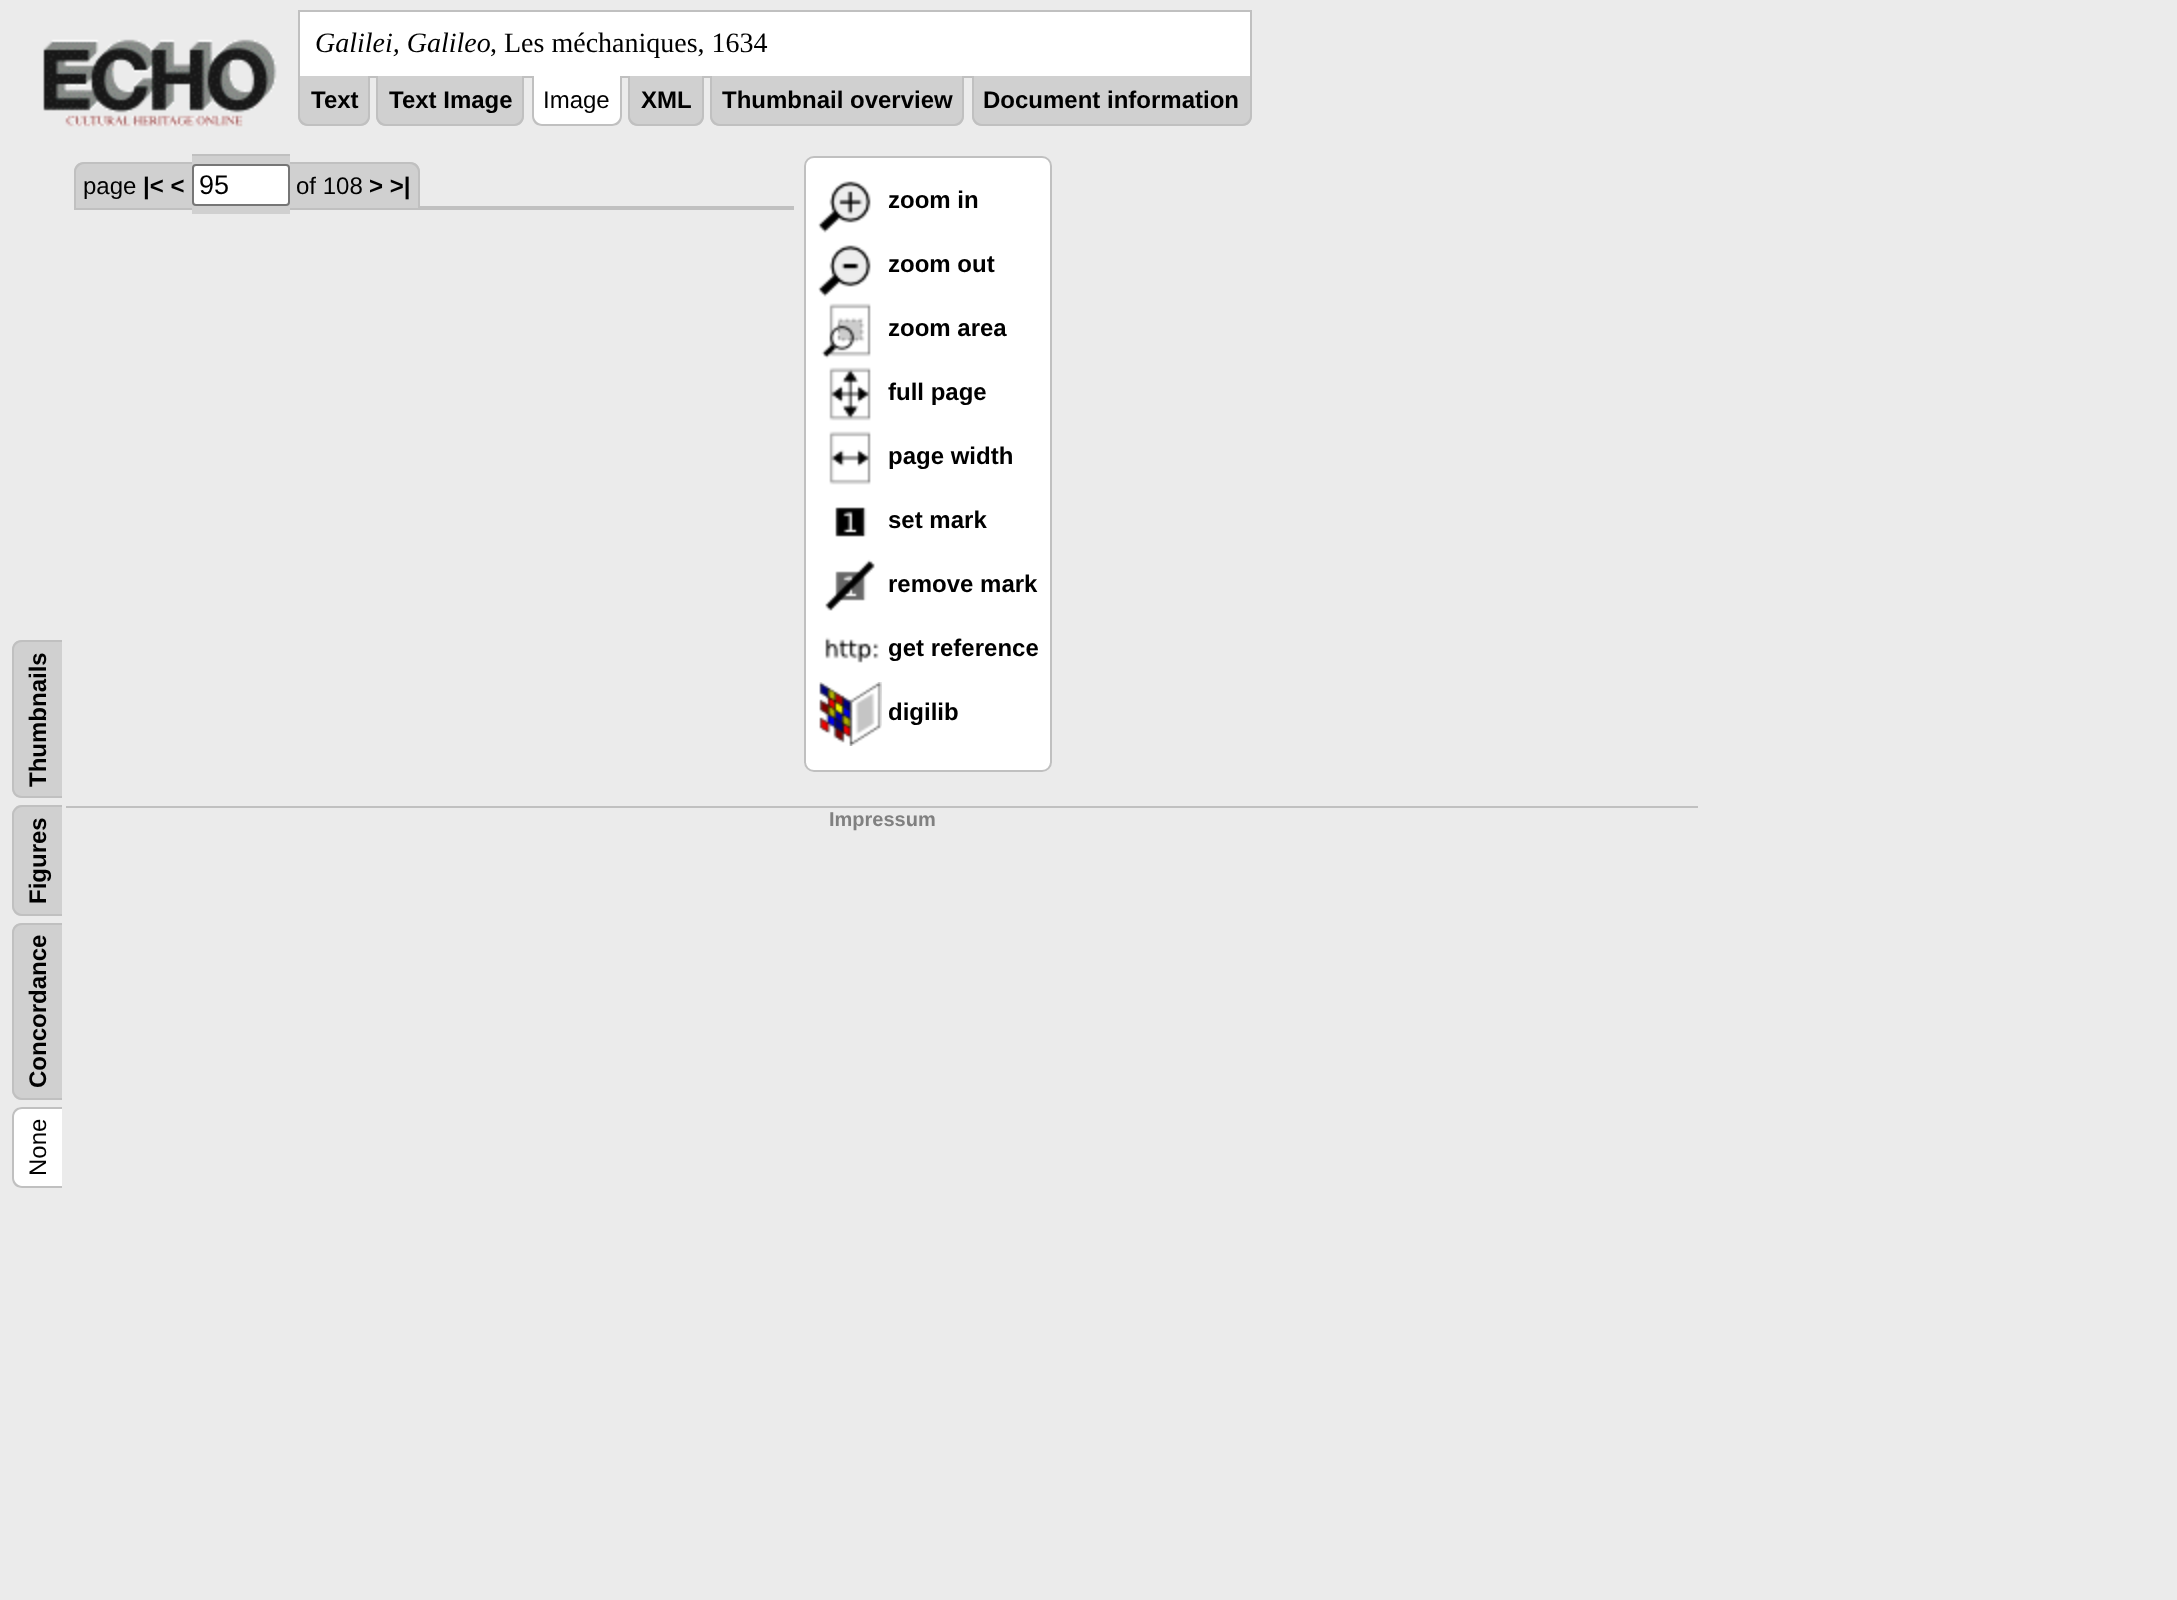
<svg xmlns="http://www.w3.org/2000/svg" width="2177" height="1600">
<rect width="100%" height="100%" fill="#ebebeb"/>
<image x="43" y="39" width="234" height="88" href="media/1.png"/>
<rect x="299" y="11" width="952" height="66" fill="#fff" stroke="#c0c0c0" stroke-width="2"/>
<text x="315" y="52" style="font-family:Liberation Serif;font-size:28px;font-style:italic;fill:#000">Galilei, Galileo</text>
<text x="490" y="52" style="font-family:Liberation Serif;font-size:28px;fill:#000">, Les méchaniques, 1634</text>
<path d="M298 76h72v40c0 5.5-4.5 10-10 10h-52c-5.5 0-10-4.5-10-10z" fill="#d0d0d0"/>
<path d="M298 76h72v40c0 6-4 10-10 10h-52c-6 0-10-4-10-10zm2 0h68v40c0 4-4 8-8 8h-52c-4 0-8-4-8-8z" fill="#c0c0c0" fill-rule="evenodd"/>
<text x="311" y="108" style="font-family:Liberation Sans;font-size:24px;font-weight:bold;fill:#000">Text</text>
<path d="M376 76h148v40c0 5.5-4.5 10-10 10h-128c-5.5 0-10-4.5-10-10z" fill="#d0d0d0"/>
<path d="M376 76h148v40c0 6-4 10-10 10h-128c-6 0-10-4-10-10zm2 0h144v40c0 4-4 8-8 8h-128c-4 0-8-4-8-8z" fill="#c0c0c0" fill-rule="evenodd"/>
<text x="389" y="108" style="font-family:Liberation Sans;font-size:24px;font-weight:bold;fill:#000">Text Image</text>
<path d="M532 76h90v40c0 5.5-4.5 10-10 10h-70c-5.5 0-10-4.5-10-10z" fill="#fff"/>
<path d="M532 76h90v40c0 6-4 10-10 10h-70c-6 0-10-4-10-10zm2 0h86v40c0 4-4 8-8 8h-70c-4 0-8-4-8-8z" fill="#c0c0c0" fill-rule="evenodd"/>
<text x="543" y="108" style="font-family:Liberation Sans;font-size:24px;fill:#000">Image</text>
<path d="M628 76h76v40c0 5.5-4.5 10-10 10h-56c-5.5 0-10-4.5-10-10z" fill="#d0d0d0"/>
<path d="M628 76h76v40c0 6-4 10-10 10h-56c-6 0-10-4-10-10zm2 0h72v40c0 4-4 8-8 8h-56c-4 0-8-4-8-8z" fill="#c0c0c0" fill-rule="evenodd"/>
<text x="641" y="108" style="font-family:Liberation Sans;font-size:24px;font-weight:bold;fill:#000">XML</text>
<path d="M710 76h254v40c0 5.5-4.5 10-10 10h-234c-5.5 0-10-4.5-10-10z" fill="#d0d0d0"/>
<path d="M710 76h254v40c0 6-4 10-10 10h-234c-6 0-10-4-10-10zm2 0h250v40c0 4-4 8-8 8h-234c-4 0-8-4-8-8z" fill="#c0c0c0" fill-rule="evenodd"/>
<text x="722" y="108" style="font-family:Liberation Sans;font-size:24px;font-weight:bold;fill:#000">Thumbnail overview</text>
<path d="M972 76h280v40c0 5.5-4.5 10-10 10h-260c-5.5 0-10-4.5-10-10z" fill="#d0d0d0"/>
<path d="M972 76h280v40c0 6-4 10-10 10h-260c-6 0-10-4-10-10zm2 0h276v40c0 4-4 8-8 8h-260c-4 0-8-4-8-8z" fill="#c0c0c0" fill-rule="evenodd"/>
<text x="983" y="108" style="font-family:Liberation Sans;font-size:24px;font-weight:bold;fill:#000">Document information</text>
<rect x="74" y="206" width="720" height="4" fill="#c0c0c0"/>
<path d="M84 162h60v46h-70v-36c0-5.5 4.5-10 10-10z" fill="#d0d0d0"/>
<path d="M84 162h60v46h-70v-36c0-6 4-10 10-10zm0 2h60v44h-68v-36c0-4 4-8 8-8z" fill="#c0c0c0" fill-rule="evenodd"/>
<rect x="144" y="164" width="20" height="44" fill="#d0d0d0"/>
<rect x="144" y="162" width="20" height="2" fill="#c0c0c0"/>
<rect x="164" y="162" width="6" height="46" fill="#d0d0d0"/>
<rect x="164" y="162" width="20" height="2" fill="#c0c0c0"/>
<rect x="170" y="164" width="14" height="44" fill="#d0d0d0"/>
<rect x="184" y="162" width="8" height="46" fill="#d0d0d0"/>
<rect x="184" y="162" width="8" height="2" fill="#c0c0c0"/>
<rect x="192" y="156" width="98" height="58" fill="#d0d0d0"/>
<rect x="192" y="154" width="98" height="2" fill="#c0c0c0"/>
<rect x="290" y="162" width="6" height="46" fill="#d0d0d0"/>
<rect x="290" y="162" width="94" height="2" fill="#c0c0c0"/>
<rect x="296" y="164" width="88" height="44" fill="#d0d0d0"/>
<rect x="384" y="162" width="6" height="46" fill="#d0d0d0"/>
<rect x="384" y="162" width="6" height="2" fill="#c0c0c0"/>
<path d="M390 162h20c5.5 0 10 4.5 10 10v36h-30z" fill="#d0d0d0"/>
<path d="M390 162h20c6 0 10 4 10 10v36h-30zm0 2h20c4 0 8 4 8 8v36h-28z" fill="#c0c0c0" fill-rule="evenodd"/>
<text x="83" y="194" style="font-family:Liberation Sans;font-size:24px;fill:#000">page</text>
<text x="143" y="194" style="font-family:Liberation Sans;font-size:24px;font-weight:bold;fill:#000">|&lt; &lt;</text>
<rect x="193" y="165" width="96" height="40" rx="3" fill="#fff" stroke="#767676" stroke-width="2"/>
<text x="199" y="194" style="font-family:Liberation Sans;font-size:27px;fill:#000">95</text>
<text x="296" y="194" style="font-family:Liberation Sans;font-size:24px;fill:#000">of 108</text>
<text x="369" y="194" style="font-family:Liberation Sans;font-size:24px;font-weight:bold;fill:#000">&gt; &gt;|</text>
<rect x="805" y="157" width="246" height="614" rx="9" fill="#fff" stroke="#c0c0c0" stroke-width="2"/>
<image x="818" y="181" width="53" height="52" href="media/2.png"/>
<text x="888" y="208" style="font-family:Liberation Sans;font-size:24px;font-weight:bold;fill:#000">zoom in</text>
<image x="818" y="245" width="53" height="52" href="media/3.png"/>
<text x="888" y="272" style="font-family:Liberation Sans;font-size:24px;font-weight:bold;fill:#000">zoom out</text>
<image x="821" y="303" width="50" height="56" href="media/4.png"/>
<text x="888" y="336" style="font-family:Liberation Sans;font-size:24px;font-weight:bold;fill:#000">zoom area</text>
<image x="829" y="367" width="42" height="54" href="media/5.png"/>
<text x="888" y="400" style="font-family:Liberation Sans;font-size:24px;font-weight:bold;fill:#000">full page</text>
<image x="829" y="431" width="42" height="54" href="media/6.png"/>
<text x="888" y="464" style="font-family:Liberation Sans;font-size:24px;font-weight:bold;fill:#000">page width</text>
<image x="835" y="507" width="32" height="30" href="media/7.png"/>
<text x="888" y="528" style="font-family:Liberation Sans;font-size:24px;font-weight:bold;fill:#000">set mark</text>
<image x="825" y="559" width="50" height="52" href="media/8.png"/>
<text x="888" y="592" style="font-family:Liberation Sans;font-size:24px;font-weight:bold;fill:#000">remove mark</text>
<image x="825" y="637" width="54" height="26" href="media/9.png"/>
<text x="888" y="656" style="font-family:Liberation Sans;font-size:24px;font-weight:bold;fill:#000">get reference</text>
<image x="819" y="682" width="63" height="64" href="media/10.png"/>
<text x="888" y="720" style="font-family:Liberation Sans;font-size:24px;font-weight:bold;fill:#000">digilib</text>
<path d="M12 788v-138c0-6 4-10 10-10h40v158h-40c-6 0-10-4-10-10z" fill="#d0d0d0"/>
<path d="M12 788v-138c0-6 4-10 10-10h40v158h-40c-6 0-10-4-10-10zm2 0v-138c0-5 4-8 8-8h40v154h-40c-4 0-8-3-8-8z" fill="#c0c0c0" fill-rule="evenodd"/>
<text x="46" y="787" transform="rotate(-90 46 787)" style="font-family:Liberation Sans;font-size:24px;font-weight:bold;fill:#000">Thumbnails</text>
<path d="M12 906v-91c0-5 4-10 10-10h40v111h-40c-6 0-10-5-10-10z" fill="#d0d0d0"/>
<path d="M12 906v-91c0-5 4-10 10-10h40v111h-40c-6 0-10-5-10-10zm2 0v-91c0-4 4-8 8-8h40v107h-40c-4 0-8-4-8-8z" fill="#c0c0c0" fill-rule="evenodd"/>
<text x="46" y="904" transform="rotate(-90 46 904)" style="font-family:Liberation Sans;font-size:24px;font-weight:bold;fill:#000">Figures</text>
<path d="M12 1090v-157c0-6 4-10 10-10h40v177h-40c-6 0-10-5-10-10z" fill="#d0d0d0"/>
<path d="M12 1090v-157c0-6 4-10 10-10h40v177h-40c-6 0-10-5-10-10zm2 0v-157c0-5 4-8 8-8h40v173h-40c-4 0-8-4-8-8z" fill="#c0c0c0" fill-rule="evenodd"/>
<text x="46" y="1088" transform="rotate(-90 46 1088)" style="font-family:Liberation Sans;font-size:24px;font-weight:bold;fill:#000">Concordance</text>
<path d="M12 1178v-61c0-6 4-10 10-10h40v81h-40c-6 0-10-4-10-10z" fill="#fff"/>
<path d="M12 1178v-61c0-6 4-10 10-10h40v81h-40c-6 0-10-4-10-10zm2 0v-61c0-5 4-8 8-8h40v77h-40c-4 0-8-4-8-8z" fill="#c0c0c0" fill-rule="evenodd"/>
<text x="46" y="1176" transform="rotate(-90 46 1176)" style="font-family:Liberation Sans;font-size:24px;fill:#000">None</text>
<rect x="66" y="806" width="1632" height="2" fill="#c0c0c0"/>
<text x="829" y="826" style="font-family:Liberation Sans;font-size:20px;font-weight:bold;fill:#808080">Impressum</text>
</svg>
